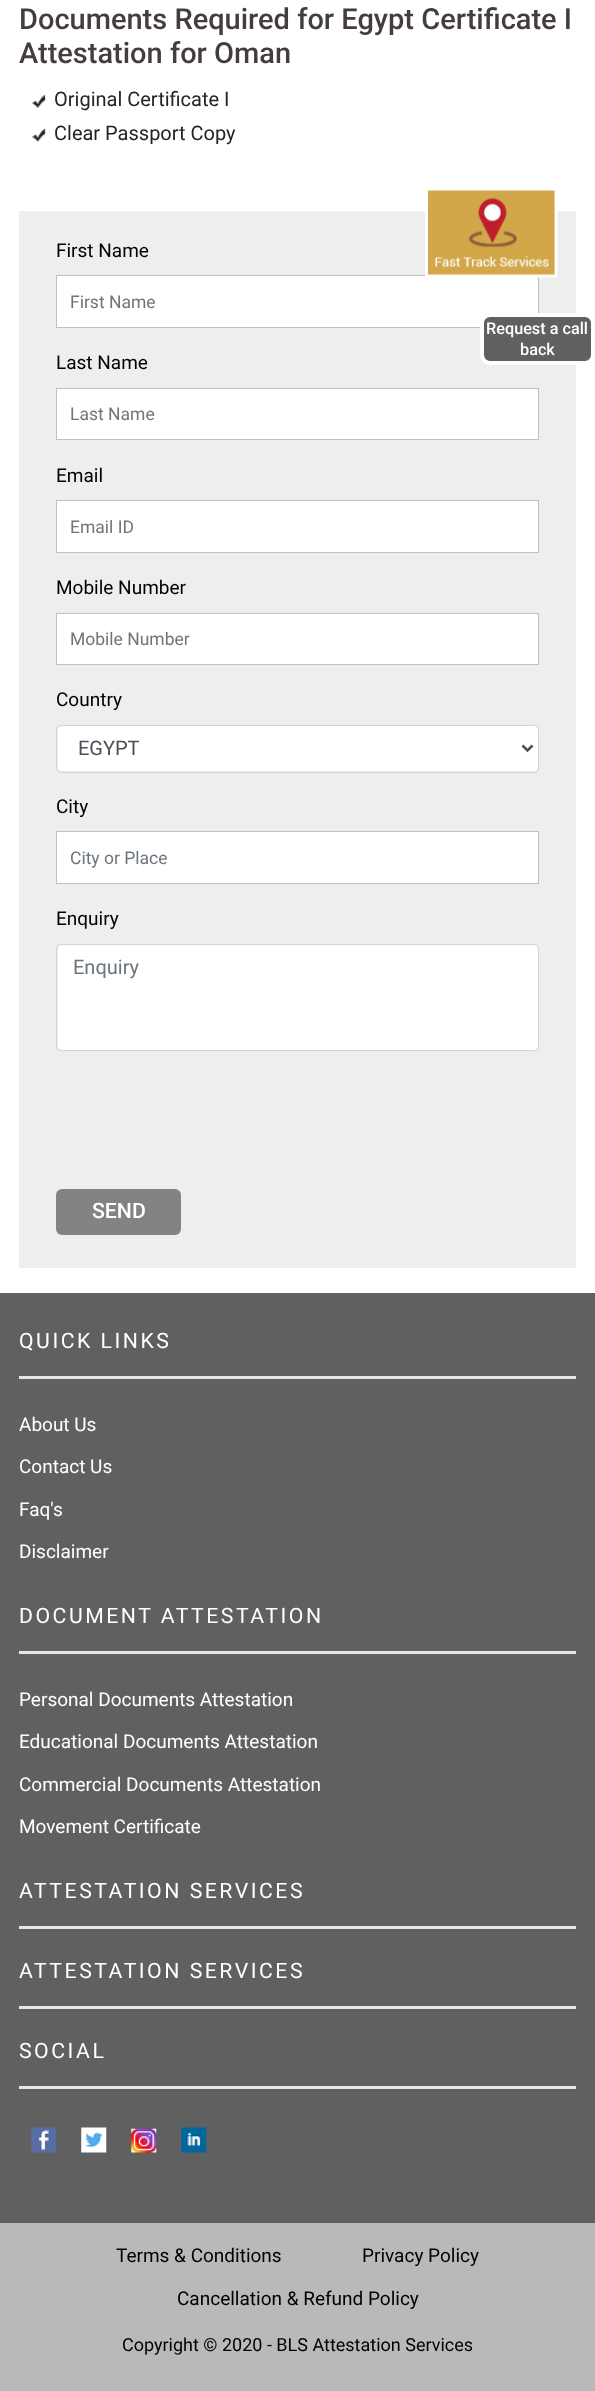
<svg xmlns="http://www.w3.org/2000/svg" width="595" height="2391">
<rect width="100%" height="100%" fill="#fff"/>
<text x="19" y="29" style="font-family:Roboto;font-size:29px;font-weight:500;fill:#453d3d">Documents Required for Egypt Certificate I</text>
<text x="19" y="63" style="font-family:Roboto;font-size:29px;font-weight:500;fill:#453d3d">Attestation for Oman</text>
<image x="31" y="95" width="16" height="13" href="media/1.png"/>
<text x="54" y="106" style="font-family:Roboto;font-size:20px;fill:#212529">Original Certificate I</text>
<image x="31" y="128" width="15" height="14" href="media/2.png"/>
<text x="54" y="140" style="font-family:Roboto;font-size:20px;fill:#212529">Clear Passport Copy</text>
<rect x="19" y="211" width="557" height="1057" fill="#edeeed"/>
<rect x="56.5" y="275.5" width="482" height="52" fill="#fff" stroke="#bfbfbf"/>
<image x="425" y="190" width="133" height="88" href="media/3.png"/>
<text x="56" y="257" style="font-family:Roboto;font-size:19px;fill:#010101">First Name</text>
<text x="70" y="308" style="font-family:Roboto;font-size:17.5px;fill:#6c757d">First Name</text>
<text x="56" y="369" style="font-family:Roboto;font-size:19px;fill:#010101">Last Name</text>
<rect x="56.5" y="388.5" width="482" height="51" fill="#fff" stroke="#bfbfbf"/>
<text x="70" y="420" style="font-family:Roboto;font-size:17.5px;fill:#6c757d">Last Name</text>
<text x="56" y="482" style="font-family:Roboto;font-size:19px;fill:#010101">Email</text>
<rect x="56.5" y="500.5" width="482" height="52" fill="#fff" stroke="#bfbfbf"/>
<text x="70" y="533" style="font-family:Roboto;font-size:17.5px;fill:#6c757d">Email ID</text>
<text x="56" y="594" style="font-family:Roboto;font-size:19px;fill:#010101">Mobile Number</text>
<rect x="56.5" y="613.5" width="482" height="51" fill="#fff" stroke="#bfbfbf"/>
<text x="70" y="645" style="font-family:Roboto;font-size:17.5px;fill:#6c757d">Mobile Number</text>
<text x="56" y="706" style="font-family:Roboto;font-size:19px;fill:#010101">Country</text>
<rect x="58" y="726" width="480" height="45" rx="4" fill="#fff"/>
<rect x="56.5" y="725.5" width="482" height="47" rx="4.5" fill="none" stroke="#ced4da"/>
<path d="M522.5 745.5l5 5l5-5" fill="none" stroke="#495057" stroke-width="2.5"/>
<text x="78" y="755" style="font-family:Roboto;font-size:20px;fill:#495057">EGYPT</text>
<text x="56" y="813" style="font-family:Roboto;font-size:19px;fill:#010101">City</text>
<rect x="56.5" y="831.5" width="482" height="52" fill="#fff" stroke="#bfbfbf"/>
<text x="70" y="864" style="font-family:Roboto;font-size:17.5px;fill:#6c757d">City or Place</text>
<text x="56" y="925" style="font-family:Roboto;font-size:19px;fill:#010101">Enquiry</text>
<rect x="58" y="945" width="480" height="105" rx="4" fill="#fff"/>
<rect x="56.5" y="944.5" width="482" height="106" rx="4.5" fill="none" stroke="#ced4da"/>
<text x="73" y="974" style="font-family:Roboto;font-size:20px;fill:#6c757d">Enquiry</text>
<rect x="56" y="1189" width="125" height="46" rx="6" fill="#838383"/>
<text x="92" y="1218" style="font-family:Roboto;font-size:21.25px;font-weight:500;fill:#fff">SEND</text>
<rect x="482" y="315" width="111" height="48" rx="8" fill="#616060" stroke="#fff" stroke-width="4"/>
<text x="486" y="334" style="font-family:Roboto;font-size:16.25px;font-weight:500;fill:#fff">Request a call</text>
<text x="520" y="355" style="font-family:Roboto;font-size:16.25px;font-weight:500;fill:#fff">back</text>
<rect y="1293" width="595" height="930" fill="#616060"/>
<text x="19" y="1348" style="font-family:Roboto;font-size:21.25px;letter-spacing:2.5px;fill:#fff">QUICK LINKS</text>
<rect x="19" y="1376" width="557" height="3" fill="#e6e6e6"/>
<text x="19" y="1431" style="font-family:Roboto;font-size:19px;fill:#fff">About Us</text>
<text x="19" y="1473" style="font-family:Roboto;font-size:19px;fill:#fff">Contact Us</text>
<text x="19" y="1516" style="font-family:Roboto;font-size:19px;fill:#fff">Faq's</text>
<text x="19" y="1558" style="font-family:Roboto;font-size:19px;fill:#fff">Disclaimer</text>
<text x="19" y="1623" style="font-family:Roboto;font-size:21.25px;letter-spacing:2.5px;fill:#fff">DOCUMENT ATTESTATION</text>
<rect x="19" y="1651" width="557" height="3" fill="#e6e6e6"/>
<text x="19" y="1706" style="font-family:Roboto;font-size:19px;fill:#fff">Personal Documents Attestation</text>
<text x="19" y="1748" style="font-family:Roboto;font-size:19px;fill:#fff">Educational Documents Attestation</text>
<text x="19" y="1791" style="font-family:Roboto;font-size:19px;fill:#fff">Commercial Documents Attestation</text>
<text x="19" y="1833" style="font-family:Roboto;font-size:19px;fill:#fff">Movement Certificate</text>
<text x="19" y="1898" style="font-family:Roboto;font-size:21.25px;letter-spacing:2.5px;fill:#fff">ATTESTATION SERVICES</text>
<rect x="19" y="1926" width="557" height="3" fill="#e6e6e6"/>
<text x="19" y="1978" style="font-family:Roboto;font-size:21.25px;letter-spacing:2.5px;fill:#fff">ATTESTATION SERVICES</text>
<rect x="19" y="2006" width="557" height="3" fill="#e6e6e6"/>
<text x="19" y="2058" style="font-family:Roboto;font-size:21.25px;letter-spacing:2.5px;fill:#fff">SOCIAL</text>
<rect x="19" y="2086" width="557" height="3" fill="#e6e6e6"/>
<image x="31" y="2127" width="26" height="26" href="media/4.png"/>
<image x="81" y="2127" width="26" height="26" href="media/5.png"/>
<image x="131" y="2128" width="26" height="25" href="media/6.png"/>
<image x="181" y="2127" width="26" height="26" href="media/7.png"/>
<rect y="2223" width="595" height="168" fill="#bab9b9"/>
<text x="116" y="2262" style="font-family:Roboto;font-size:19px;fill:#010101">Terms &amp; Conditions</text>
<text x="362" y="2262" style="font-family:Roboto;font-size:19px;fill:#010101">Privacy Policy</text>
<text x="177" y="2305" style="font-family:Roboto;font-size:19px;fill:#010101">Cancellation &amp; Refund Policy</text>
<text x="122" y="2351" style="font-family:Roboto;font-size:18px;fill:#010101">Copyright © 2020 - BLS Attestation Services</text>
</svg>
